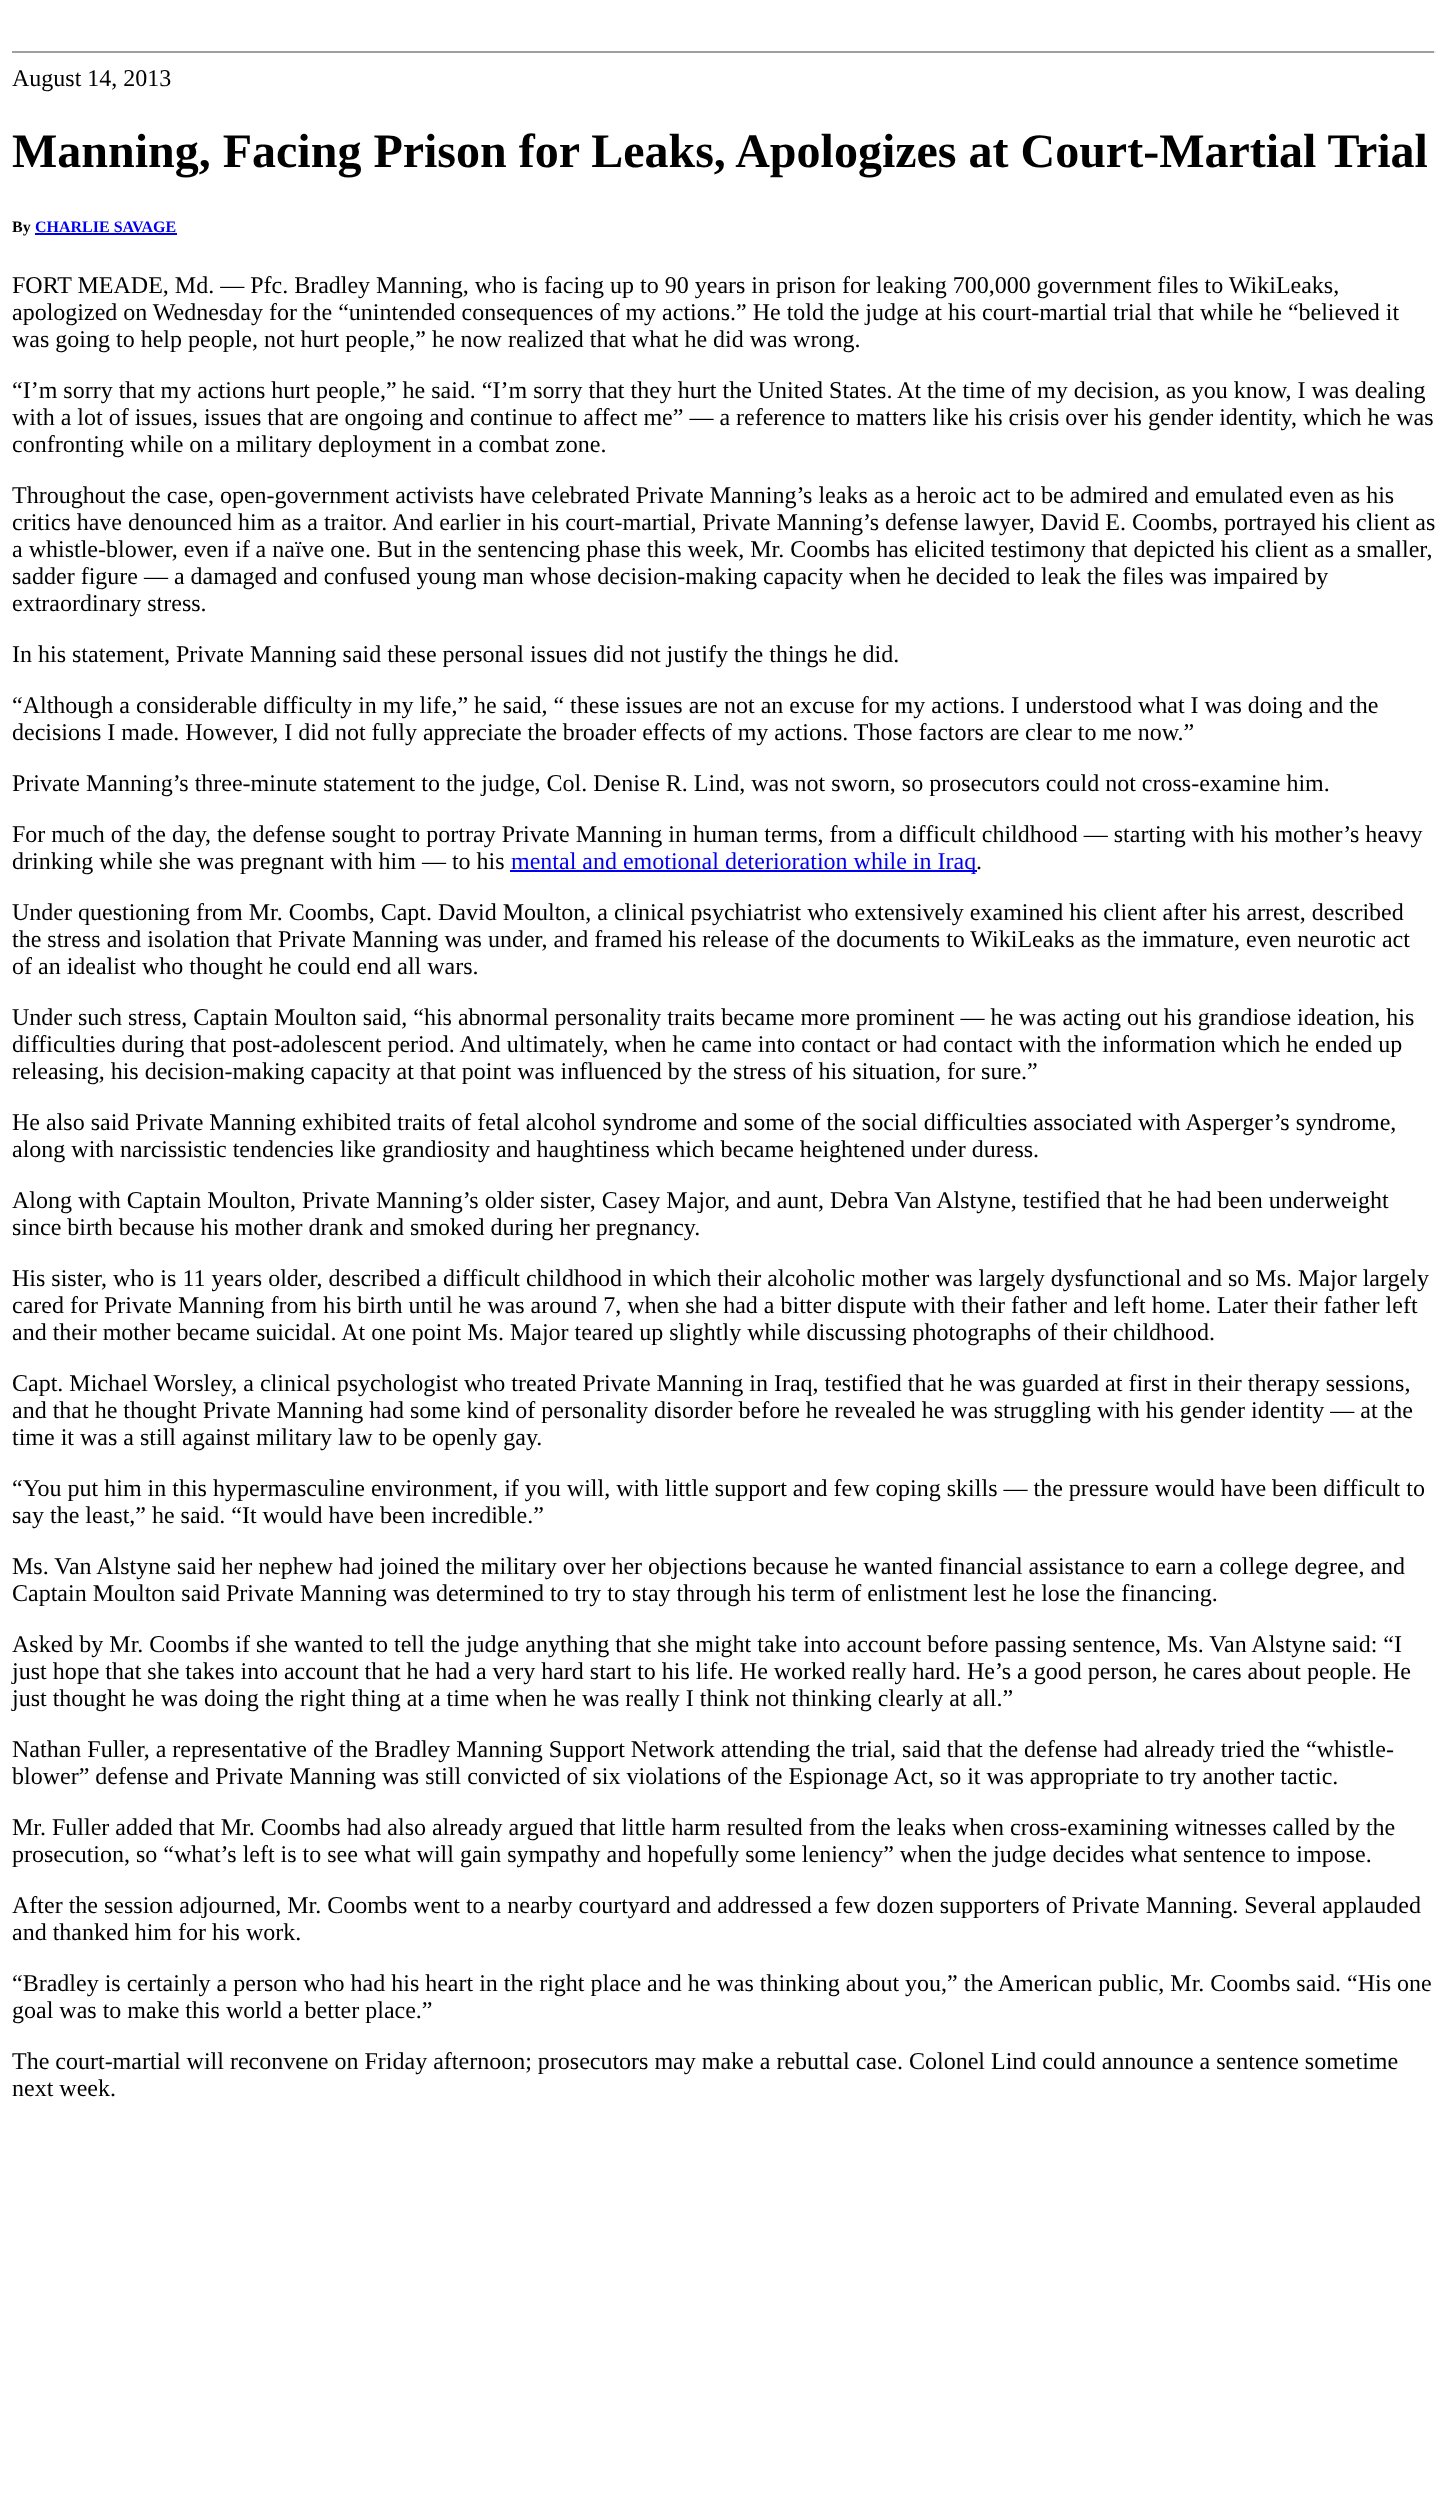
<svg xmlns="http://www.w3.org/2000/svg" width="1447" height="2517">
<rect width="100%" height="100%" fill="#fff"/>
<rect x="12" y="51" width="1424" height="2" fill="#9f9f9f"/>
<rect x="1434" y="51" width="2" height="2" fill="#eee"/>
<text x="12" y="86" style="font-family:Liberation Serif;font-size:24px;fill:#000">August 14, 2013</text>
<text x="12" y="167" style="font-family:Liberation Serif;font-size:48px;font-weight:bold;fill:#000">Manning, Facing Prison for Leaks, Apologizes at Court-Martial Trial</text>
<text x="12" y="232" style="font-family:Liberation Serif;font-size:16px;font-weight:bold;fill:#000">By</text>
<text x="35" y="232" style="font-family:Liberation Serif;font-size:16px;font-weight:bold;fill:#00e">CHARLIE SAVAGE</text>
<rect x="35" y="233" width="142" height="2" fill="#00e"/>
<text x="12" y="293" style="font-family:Liberation Serif;font-size:24px;fill:#000">FORT MEADE, Md. — Pfc. Bradley Manning, who is facing up to 90 years in prison for leaking 700,000 government files to WikiLeaks,</text>
<text x="12" y="320" style="font-family:Liberation Serif;font-size:24px;fill:#000">apologized on Wednesday for the “unintended consequences of my actions.” He told the judge at his court-martial trial that while he “believed it</text>
<text x="12" y="347" style="font-family:Liberation Serif;font-size:24px;fill:#000">was going to help people, not hurt people,” he now realized that what he did was wrong.</text>
<text x="12" y="398" style="font-family:Liberation Serif;font-size:24px;fill:#000">“I’m sorry that my actions hurt people,” he said. “I’m sorry that they hurt the United States. At the time of my decision, as you know, I was dealing</text>
<text x="12" y="425" style="font-family:Liberation Serif;font-size:24px;fill:#000">with a lot of issues, issues that are ongoing and continue to affect me” — a reference to matters like his crisis over his gender identity, which he was</text>
<text x="12" y="452" style="font-family:Liberation Serif;font-size:24px;fill:#000">confronting while on a military deployment in a combat zone.</text>
<text x="12" y="503" style="font-family:Liberation Serif;font-size:24px;fill:#000">Throughout the case, open-government activists have celebrated Private Manning’s leaks as a heroic act to be admired and emulated even as his</text>
<text x="12" y="530" style="font-family:Liberation Serif;font-size:24px;fill:#000">critics have denounced him as a traitor. And earlier in his court-martial, Private Manning’s defense lawyer, David E. Coombs, portrayed his client as</text>
<text x="12" y="557" style="font-family:Liberation Serif;font-size:24px;fill:#000">a whistle-blower, even if a naïve one. But in the sentencing phase this week, Mr. Coombs has elicited testimony that depicted his client as a smaller,</text>
<text x="12" y="584" style="font-family:Liberation Serif;font-size:24px;fill:#000">sadder figure — a damaged and confused young man whose decision-making capacity when he decided to leak the files was impaired by</text>
<text x="12" y="611" style="font-family:Liberation Serif;font-size:24px;fill:#000">extraordinary stress.</text>
<text x="12" y="662" style="font-family:Liberation Serif;font-size:24px;fill:#000">In his statement, Private Manning said these personal issues did not justify the things he did.</text>
<text x="12" y="713" style="font-family:Liberation Serif;font-size:24px;fill:#000">“Although a considerable difficulty in my life,” he said, “ these issues are not an excuse for my actions. I understood what I was doing and the</text>
<text x="12" y="740" style="font-family:Liberation Serif;font-size:24px;fill:#000">decisions I made. However, I did not fully appreciate the broader effects of my actions. Those factors are clear to me now.”</text>
<text x="12" y="791" style="font-family:Liberation Serif;font-size:24px;fill:#000">Private Manning’s three-minute statement to the judge, Col. Denise R. Lind, was not sworn, so prosecutors could not cross-examine him.</text>
<text x="12" y="842" style="font-family:Liberation Serif;font-size:24px;fill:#000">For much of the day, the defense sought to portray Private Manning in human terms, from a difficult childhood — starting with his mother’s heavy</text>
<text x="12" y="869" style="font-family:Liberation Serif;font-size:24px;fill:#000">drinking while she was pregnant with him — to his</text>
<rect x="510" y="870" width="467" height="2" fill="#00e"/>
<text x="511" y="869" style="font-family:Liberation Serif;font-size:24px;fill:#00e">mental and emotional deterioration while in Iraq</text>
<text x="976" y="869" style="font-family:Liberation Serif;font-size:24px;fill:#000">.</text>
<text x="12" y="920" style="font-family:Liberation Serif;font-size:24px;fill:#000">Under questioning from Mr. Coombs, Capt. David Moulton, a clinical psychiatrist who extensively examined his client after his arrest, described</text>
<text x="12" y="947" style="font-family:Liberation Serif;font-size:24px;fill:#000">the stress and isolation that Private Manning was under, and framed his release of the documents to WikiLeaks as the immature, even neurotic act</text>
<text x="12" y="974" style="font-family:Liberation Serif;font-size:24px;fill:#000">of an idealist who thought he could end all wars.</text>
<text x="12" y="1025" style="font-family:Liberation Serif;font-size:24px;fill:#000">Under such stress, Captain Moulton said, “his abnormal personality traits became more prominent — he was acting out his grandiose ideation, his</text>
<text x="12" y="1052" style="font-family:Liberation Serif;font-size:24px;fill:#000">difficulties during that post-adolescent period. And ultimately, when he came into contact or had contact with the information which he ended up</text>
<text x="12" y="1079" style="font-family:Liberation Serif;font-size:24px;fill:#000">releasing, his decision-making capacity at that point was influenced by the stress of his situation, for sure.”</text>
<text x="12" y="1130" style="font-family:Liberation Serif;font-size:24px;fill:#000">He also said Private Manning exhibited traits of fetal alcohol syndrome and some of the social difficulties associated with Asperger’s syndrome,</text>
<text x="12" y="1157" style="font-family:Liberation Serif;font-size:24px;fill:#000">along with narcissistic tendencies like grandiosity and haughtiness which became heightened under duress.</text>
<text x="12" y="1208" style="font-family:Liberation Serif;font-size:24px;fill:#000">Along with Captain Moulton, Private Manning’s older sister, Casey Major, and aunt, Debra Van Alstyne, testified that he had been underweight</text>
<text x="12" y="1235" style="font-family:Liberation Serif;font-size:24px;fill:#000">since birth because his mother drank and smoked during her pregnancy.</text>
<text x="12" y="1286" style="font-family:Liberation Serif;font-size:24px;fill:#000">His sister, who is 11 years older, described a difficult childhood in which their alcoholic mother was largely dysfunctional and so Ms. Major largely</text>
<text x="12" y="1313" style="font-family:Liberation Serif;font-size:24px;fill:#000">cared for Private Manning from his birth until he was around 7, when she had a bitter dispute with their father and left home. Later their father left</text>
<text x="12" y="1340" style="font-family:Liberation Serif;font-size:24px;fill:#000">and their mother became suicidal. At one point Ms. Major teared up slightly while discussing photographs of their childhood.</text>
<text x="12" y="1391" style="font-family:Liberation Serif;font-size:24px;fill:#000">Capt. Michael Worsley, a clinical psychologist who treated Private Manning in Iraq, testified that he was guarded at first in their therapy sessions,</text>
<text x="12" y="1418" style="font-family:Liberation Serif;font-size:24px;fill:#000">and that he thought Private Manning had some kind of personality disorder before he revealed he was struggling with his gender identity — at the</text>
<text x="12" y="1445" style="font-family:Liberation Serif;font-size:24px;fill:#000">time it was a still against military law to be openly gay.</text>
<text x="12" y="1496" style="font-family:Liberation Serif;font-size:24px;fill:#000">“You put him in this hypermasculine environment, if you will, with little support and few coping skills — the pressure would have been difficult to</text>
<text x="12" y="1523" style="font-family:Liberation Serif;font-size:24px;fill:#000">say the least,” he said. “It would have been incredible.”</text>
<text x="12" y="1574" style="font-family:Liberation Serif;font-size:24px;fill:#000">Ms. Van Alstyne said her nephew had joined the military over her objections because he wanted financial assistance to earn a college degree, and</text>
<text x="12" y="1601" style="font-family:Liberation Serif;font-size:24px;fill:#000">Captain Moulton said Private Manning was determined to try to stay through his term of enlistment lest he lose the financing.</text>
<text x="12" y="1652" style="font-family:Liberation Serif;font-size:24px;fill:#000">Asked by Mr. Coombs if she wanted to tell the judge anything that she might take into account before passing sentence, Ms. Van Alstyne said: “I</text>
<text x="12" y="1679" style="font-family:Liberation Serif;font-size:24px;fill:#000">just hope that she takes into account that he had a very hard start to his life. He worked really hard. He’s a good person, he cares about people. He</text>
<text x="12" y="1706" style="font-family:Liberation Serif;font-size:24px;fill:#000">just thought he was doing the right thing at a time when he was really I think not thinking clearly at all.”</text>
<text x="12" y="1757" style="font-family:Liberation Serif;font-size:24px;fill:#000">Nathan Fuller, a representative of the Bradley Manning Support Network attending the trial, said that the defense had already tried the “whistle-</text>
<text x="12" y="1784" style="font-family:Liberation Serif;font-size:24px;fill:#000">blower” defense and Private Manning was still convicted of six violations of the Espionage Act, so it was appropriate to try another tactic.</text>
<text x="12" y="1835" style="font-family:Liberation Serif;font-size:24px;fill:#000">Mr. Fuller added that Mr. Coombs had also already argued that little harm resulted from the leaks when cross-examining witnesses called by the</text>
<text x="12" y="1862" style="font-family:Liberation Serif;font-size:24px;fill:#000">prosecution, so “what’s left is to see what will gain sympathy and hopefully some leniency” when the judge decides what sentence to impose.</text>
<text x="12" y="1913" style="font-family:Liberation Serif;font-size:24px;fill:#000">After the session adjourned, Mr. Coombs went to a nearby courtyard and addressed a few dozen supporters of Private Manning. Several applauded</text>
<text x="12" y="1940" style="font-family:Liberation Serif;font-size:24px;fill:#000">and thanked him for his work.</text>
<text x="12" y="1991" style="font-family:Liberation Serif;font-size:24px;fill:#000">“Bradley is certainly a person who had his heart in the right place and he was thinking about you,” the American public, Mr. Coombs said. “His one</text>
<text x="12" y="2018" style="font-family:Liberation Serif;font-size:24px;fill:#000">goal was to make this world a better place.”</text>
<text x="12" y="2069" style="font-family:Liberation Serif;font-size:24px;fill:#000">The court-martial will reconvene on Friday afternoon; prosecutors may make a rebuttal case. Colonel Lind could announce a sentence sometime</text>
<text x="12" y="2096" style="font-family:Liberation Serif;font-size:24px;fill:#000">next week.</text>
</svg>
